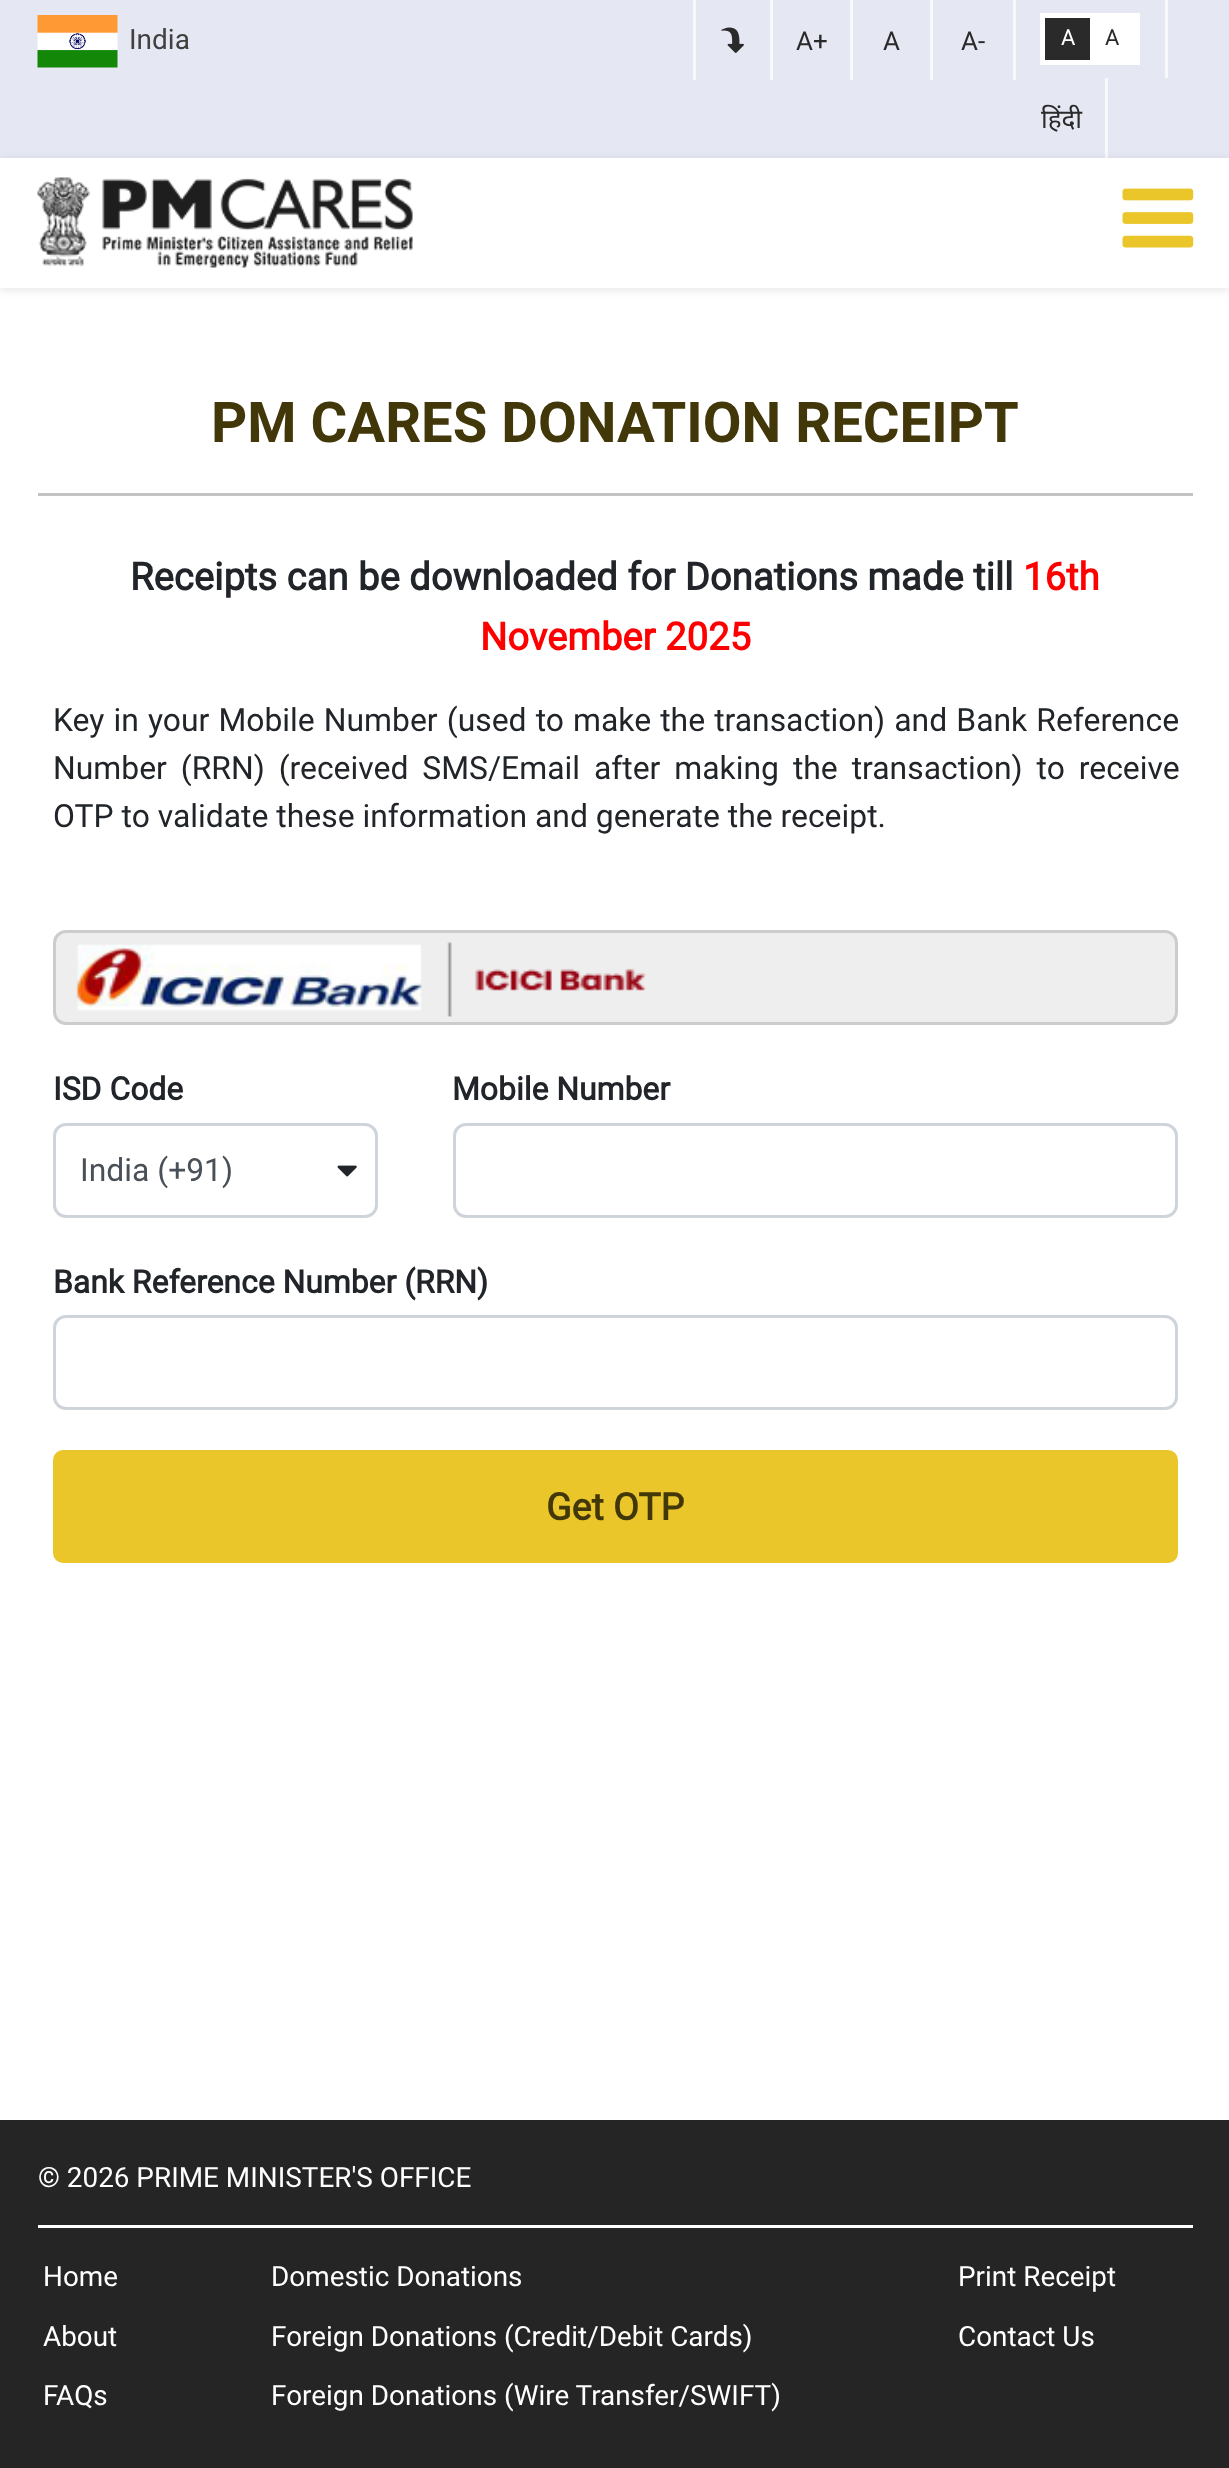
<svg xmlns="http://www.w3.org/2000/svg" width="1229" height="2468">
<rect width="100%" height="100%" fill="#fff"/>
<rect width="1229" height="158" fill="#e5e7f3"/>
<image x="37" y="15" width="81" height="53" href="media/1.png"/>
<text x="129" y="49" style="font-family:Roboto;font-size:28px;fill:#40403e">India</text>
<rect x="770" width="3" height="80" fill="#f9f9fc"/>
<rect x="693" width="3" height="80" fill="#f9f9fc"/>
<image x="721" y="27" width="23" height="26" href="media/2.png"/>
<rect x="1013" width="3" height="80" fill="#f9f9fc"/>
<rect x="850" width="3" height="80" fill="#f9f9fc"/>
<text x="796" y="50" style="font-family:Roboto;font-size:26px;fill:#2a2a2a">A+</text>
<rect x="930" width="3" height="80" fill="#f9f9fc"/>
<text x="883" y="50" style="font-family:Roboto;font-size:26px;fill:#2a2a2a">A</text>
<text x="961" y="50" style="font-family:Roboto;font-size:26px;fill:#2a2a2a">A-</text>
<rect x="1165" width="3" height="78" fill="#f9f9fc"/>
<rect x="1040" y="13" width="100" height="52" fill="#fff"/>
<rect x="1045" y="18" width="45" height="42" fill="#2a2a2a"/>
<text x="1061" y="45" style="font-family:Roboto;font-size:22px;fill:#fff">A</text>
<text x="1105" y="45" style="font-family:Roboto;font-size:22px;fill:#2a2a2a">A</text>
<rect x="1105" y="78" width="3" height="80" fill="#f9f9fc"/>
<text x="1041" y="128" style="font-family:Noto Sans;font-size:26px;fill:#2a2a2a">हिंदी</text>
<rect y="160" width="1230" height="130" fill="#0000001a" filter="blur(5px)"/>
<rect y="158" width="1229" height="130" fill="#fff"/>
<image x="37" y="177" width="376" height="91" href="media/3.png"/>
<image x="1122" y="188" width="72" height="60" href="media/4.png"/>
<rect x="38" y="493" width="1155" height="3" fill="#c3c3c3"/>
<text x="211" y="442" style="font-family:Roboto;font-size:56.25px;font-weight:bold;fill:#423709">PM CARES DONATION RECEIPT</text>
<text x="130" y="590" style="font-family:'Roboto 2';font-size:38.25px;font-weight:bold;fill:#212529">Receipts can be downloaded for Donations made till</text>
<text x="1023" y="590" style="font-family:'Roboto 2';font-size:38.25px;font-weight:bold;fill:#f00">16th</text>
<text x="480" y="650" style="font-family:'Roboto 2';font-size:38.25px;font-weight:bold;fill:#f00">November 2025</text>
<text x="53" y="731" word-spacing="1.2" style="font-family:Roboto;font-size:31.9px;fill:#212529">Key in your Mobile Number (used to make the transaction) and Bank Reference</text>
<text x="53" y="779" word-spacing="6" style="font-family:Roboto;font-size:31.9px;fill:#212529">Number (RRN) (received SMS/Email after making the transaction) to receive</text>
<text x="53" y="827" style="font-family:Roboto;font-size:31.9px;fill:#212529">OTP to validate these information and generate the receipt.</text>
<rect x="54.5" y="931.5" width="1122" height="92" rx="11.5" fill="#eee" stroke="#ccc" stroke-width="3"/>
<image x="76" y="942" width="571" height="75" href="media/5.png"/>
<text x="53" y="1100" style="font-family:'Roboto 2';font-size:31.9px;font-weight:bold;fill:#212529">ISD Code</text>
<image x="337" y="1165" width="20" height="12" href="media/6.png"/>
<rect x="54.5" y="1124.5" width="322" height="92" rx="11.5" fill="none" stroke="#ced4da" stroke-width="3"/>
<text x="80" y="1181" style="font-family:Roboto;font-size:31.9px;fill:#495057">India (+91)</text>
<text x="452" y="1100" style="font-family:'Roboto 2';font-size:31.9px;font-weight:bold;fill:#212529">Mobile Number</text>
<rect x="454.5" y="1124.5" width="722" height="92" rx="11.5" fill="none" stroke="#ced4da" stroke-width="3"/>
<text x="53" y="1293" style="font-family:'Roboto 2';font-size:31.9px;font-weight:bold;fill:#212529">Bank Reference Number (RRN)</text>
<rect x="54.5" y="1316.5" width="1122" height="92" rx="11.5" fill="none" stroke="#ced4da" stroke-width="3"/>
<rect x="53" y="1450" width="1125" height="113" rx="10" fill="#eac62a"/>
<text x="546" y="1520" style="font-family:'Roboto 2';font-size:37.5px;font-weight:bold;fill:#423709">Get OTP</text>
<rect y="2120" width="1229" height="348" fill="#252525"/>
<text x="38" y="2187" style="font-family:Roboto;font-size:27.9px;fill:#fff">© 2026 PRIME MINISTER'S OFFICE</text>
<rect x="38" y="2225" width="1155" height="3" fill="#fff"/>
<text x="43" y="2286" style="font-family:Roboto;font-size:27.9px;fill:#fff">Home</text>
<text x="271" y="2286" style="font-family:Roboto;font-size:27.9px;fill:#fff">Domestic Donations</text>
<text x="958" y="2286" style="font-family:Roboto;font-size:27.9px;fill:#fff">Print Receipt</text>
<text x="43" y="2346" style="font-family:Roboto;font-size:27.9px;fill:#fff">About</text>
<text x="271" y="2346" style="font-family:Roboto;font-size:27.9px;fill:#fff">Foreign Donations (Credit/Debit Cards)</text>
<text x="958" y="2346" style="font-family:Roboto;font-size:27.9px;fill:#fff">Contact Us</text>
<text x="43" y="2405" style="font-family:Roboto;font-size:27.9px;fill:#fff">FAQs</text>
<text x="271" y="2405" style="font-family:Roboto;font-size:27.9px;fill:#fff">Foreign Donations (Wire Transfer/SWIFT)</text>
</svg>
